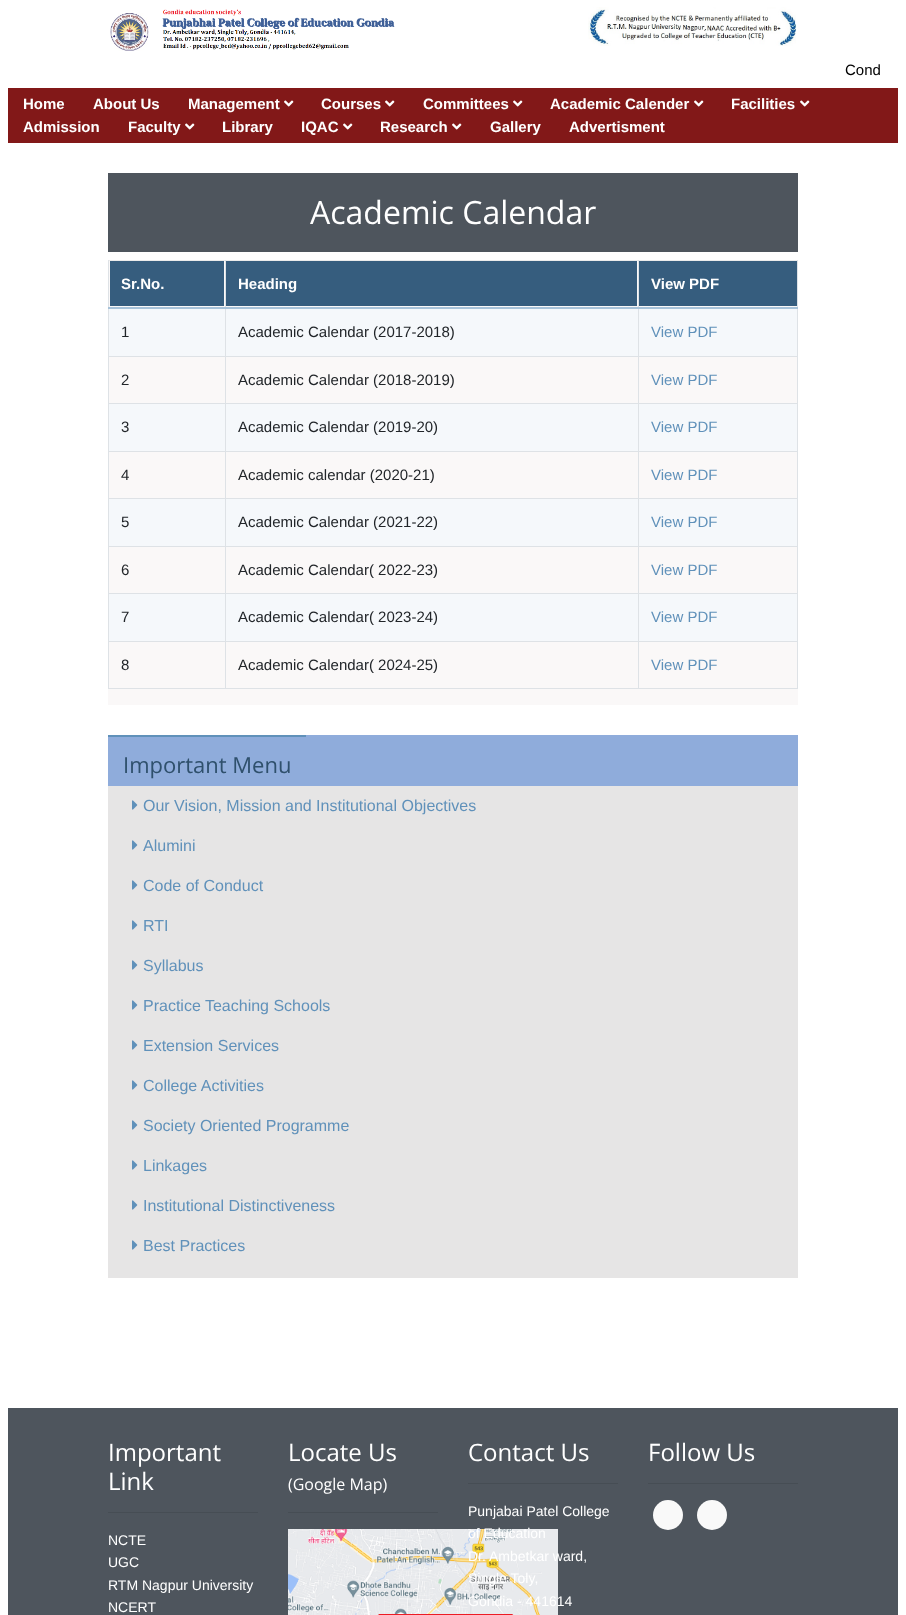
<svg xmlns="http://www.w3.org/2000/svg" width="906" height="1615">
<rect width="100%" height="100%" fill="#fff"/>
<image x="110" y="9" width="285" height="42" href="media/1.png"/>
<image x="588" y="7" width="209" height="39" href="media/2.png"/>
<text x="845" y="75" style="font-family:Liberation Sans;font-size:15px;fill:#000">Cond</text>
<rect x="8" y="88" width="890" height="55" fill="#821818"/>
<text x="23" y="109" style="font-family:Liberation Sans;font-size:15px;font-weight:bold;fill:#fff">Home</text>
<text x="93" y="109" style="font-family:Liberation Sans;font-size:15px;font-weight:bold;fill:#fff">About Us</text>
<text x="188" y="109" style="font-family:Liberation Sans;font-size:15px;font-weight:bold;fill:#fff">Management</text>
<image x="284" y="100" width="10" height="7" href="media/3.png"/>
<text x="321" y="109" style="font-family:Liberation Sans;font-size:15px;font-weight:bold;fill:#fff">Courses</text>
<image x="385" y="100" width="10" height="7" href="media/3.png"/>
<text x="423" y="109" style="font-family:Liberation Sans;font-size:15px;font-weight:bold;fill:#fff">Committees</text>
<image x="513" y="100" width="10" height="7" href="media/3.png"/>
<text x="550" y="109" style="font-family:Liberation Sans;font-size:15px;font-weight:bold;fill:#fff">Academic Calender</text>
<image x="694" y="100" width="10" height="7" href="media/3.png"/>
<text x="731" y="109" style="font-family:Liberation Sans;font-size:15px;font-weight:bold;fill:#fff">Facilities</text>
<image x="800" y="100" width="10" height="7" href="media/3.png"/>
<text x="23" y="132" style="font-family:Liberation Sans;font-size:15px;font-weight:bold;fill:#fff">Admission</text>
<text x="128" y="132" style="font-family:Liberation Sans;font-size:15px;font-weight:bold;fill:#fff">Faculty</text>
<image x="185" y="123" width="10" height="7" href="media/3.png"/>
<text x="222" y="132" style="font-family:Liberation Sans;font-size:15px;font-weight:bold;fill:#fff">Library</text>
<text x="301" y="132" style="font-family:Liberation Sans;font-size:15px;font-weight:bold;fill:#fff">IQAC</text>
<image x="343" y="123" width="10" height="7" href="media/3.png"/>
<text x="380" y="132" style="font-family:Liberation Sans;font-size:15px;font-weight:bold;fill:#fff">Research</text>
<image x="452" y="123" width="10" height="7" href="media/3.png"/>
<text x="490" y="132" style="font-family:Liberation Sans;font-size:15px;font-weight:bold;fill:#fff">Gallery</text>
<text x="569" y="132" style="font-family:Liberation Sans;font-size:15px;font-weight:bold;fill:#fff">Advertisment</text>
<rect x="108" y="173" width="690" height="79" fill="#4e555d"/>
<text x="310" y="224" style="font-family:Open Sans;font-size:32px;fill:#fff">Academic Calendar</text>
<rect x="108" y="261" width="690" height="444" fill="#faf8f8"/>
<rect x="108" y="260" width="690" height="1" fill="#ebebeb"/>
<rect x="110" y="261" width="114" height="45" fill="#365d7e"/>
<text x="121" y="289" style="font-family:Liberation Sans;font-size:15px;font-weight:bold;fill:#fff">Sr.No.</text>
<rect x="226" y="261" width="411" height="45" fill="#365d7e"/>
<text x="238" y="289" style="font-family:Liberation Sans;font-size:15px;font-weight:bold;fill:#fff">Heading</text>
<rect x="639" y="261" width="158" height="45" fill="#365d7e"/>
<rect x="797" y="260" width="1" height="429" fill="#dee2e6"/>
<rect x="638" y="688" width="160" height="1" fill="#dee2e6"/>
<rect x="638" y="641" width="1" height="48" fill="#dee2e6"/>
<rect x="638" y="641" width="160" height="1" fill="#dee2e6"/>
<rect x="638" y="593" width="1" height="49" fill="#dee2e6"/>
<rect x="638" y="593" width="160" height="1" fill="#dee2e6"/>
<rect x="638" y="546" width="1" height="48" fill="#dee2e6"/>
<rect x="638" y="546" width="160" height="1" fill="#dee2e6"/>
<rect x="638" y="498" width="1" height="49" fill="#dee2e6"/>
<rect x="638" y="498" width="160" height="1" fill="#dee2e6"/>
<rect x="638" y="451" width="1" height="48" fill="#dee2e6"/>
<rect x="638" y="451" width="160" height="1" fill="#dee2e6"/>
<rect x="638" y="403" width="1" height="49" fill="#dee2e6"/>
<rect x="638" y="403" width="160" height="1" fill="#dee2e6"/>
<rect x="638" y="356" width="1" height="48" fill="#dee2e6"/>
<rect x="638" y="356" width="160" height="1" fill="#dee2e6"/>
<rect x="638" y="260" width="1" height="97" fill="#dee2e6"/>
<rect x="225" y="688" width="414" height="1" fill="#dee2e6"/>
<rect x="225" y="641" width="1" height="48" fill="#dee2e6"/>
<rect x="225" y="641" width="414" height="1" fill="#dee2e6"/>
<rect x="225" y="593" width="1" height="49" fill="#dee2e6"/>
<rect x="225" y="593" width="414" height="1" fill="#dee2e6"/>
<rect x="225" y="546" width="1" height="48" fill="#dee2e6"/>
<rect x="225" y="546" width="414" height="1" fill="#dee2e6"/>
<rect x="225" y="498" width="1" height="49" fill="#dee2e6"/>
<rect x="225" y="498" width="414" height="1" fill="#dee2e6"/>
<rect x="225" y="451" width="1" height="48" fill="#dee2e6"/>
<rect x="225" y="451" width="414" height="1" fill="#dee2e6"/>
<rect x="225" y="403" width="1" height="49" fill="#dee2e6"/>
<rect x="225" y="403" width="414" height="1" fill="#dee2e6"/>
<rect x="225" y="356" width="1" height="48" fill="#dee2e6"/>
<rect x="225" y="356" width="414" height="1" fill="#dee2e6"/>
<rect x="225" y="260" width="1" height="97" fill="#dee2e6"/>
<rect x="108" y="688" width="118" height="1" fill="#dee2e6"/>
<rect x="108" y="641" width="1" height="48" fill="#dee2e6"/>
<rect x="108" y="641" width="118" height="1" fill="#dee2e6"/>
<rect x="108" y="593" width="1" height="49" fill="#dee2e6"/>
<rect x="108" y="593" width="118" height="1" fill="#dee2e6"/>
<rect x="108" y="546" width="1" height="48" fill="#dee2e6"/>
<rect x="108" y="546" width="118" height="1" fill="#dee2e6"/>
<rect x="108" y="498" width="1" height="49" fill="#dee2e6"/>
<rect x="108" y="498" width="118" height="1" fill="#dee2e6"/>
<rect x="108" y="451" width="1" height="48" fill="#dee2e6"/>
<rect x="108" y="451" width="118" height="1" fill="#dee2e6"/>
<rect x="108" y="403" width="1" height="49" fill="#dee2e6"/>
<rect x="108" y="403" width="118" height="1" fill="#dee2e6"/>
<rect x="108" y="356" width="1" height="48" fill="#dee2e6"/>
<rect x="108" y="356" width="118" height="1" fill="#dee2e6"/>
<rect x="108" y="260" width="1" height="97" fill="#dee2e6"/>
<rect x="108" y="307" width="690" height="2" fill="#a7c2d9"/>
<text x="651" y="289" style="font-family:Liberation Sans;font-size:15px;font-weight:bold;fill:#fff">View PDF</text>
<rect x="109" y="309" width="116" height="47" fill="#f5f8fb"/>
<text x="121" y="337" style="font-family:Liberation Sans;font-size:15px;fill:#212529">1</text>
<rect x="226" y="309" width="412" height="47" fill="#f5f8fb"/>
<text x="238" y="337" style="font-family:Liberation Sans;font-size:15px;fill:#212529">Academic Calendar (2017-2018)</text>
<rect x="639" y="309" width="158" height="47" fill="#f5f8fb"/>
<text x="651" y="337" style="font-family:Liberation Sans;font-size:15px;fill:#6091ba">View PDF</text>
<text x="121" y="385" style="font-family:Liberation Sans;font-size:15px;fill:#212529">2</text>
<text x="238" y="385" style="font-family:Liberation Sans;font-size:15px;fill:#212529">Academic Calendar (2018-2019)</text>
<text x="651" y="385" style="font-family:Liberation Sans;font-size:15px;fill:#6091ba">View PDF</text>
<rect x="109" y="404" width="116" height="47" fill="#f5f8fb"/>
<text x="121" y="432" style="font-family:Liberation Sans;font-size:15px;fill:#212529">3</text>
<rect x="226" y="404" width="412" height="47" fill="#f5f8fb"/>
<text x="238" y="432" style="font-family:Liberation Sans;font-size:15px;fill:#212529">Academic Calendar (2019-20)</text>
<rect x="639" y="404" width="158" height="47" fill="#f5f8fb"/>
<text x="651" y="432" style="font-family:Liberation Sans;font-size:15px;fill:#6091ba">View PDF</text>
<text x="121" y="480" style="font-family:Liberation Sans;font-size:15px;fill:#212529">4</text>
<text x="238" y="480" style="font-family:Liberation Sans;font-size:15px;fill:#212529">Academic calendar (2020-21)</text>
<text x="651" y="480" style="font-family:Liberation Sans;font-size:15px;fill:#6091ba">View PDF</text>
<rect x="109" y="499" width="116" height="47" fill="#f5f8fb"/>
<text x="121" y="527" style="font-family:Liberation Sans;font-size:15px;fill:#212529">5</text>
<rect x="226" y="499" width="412" height="47" fill="#f5f8fb"/>
<text x="238" y="527" style="font-family:Liberation Sans;font-size:15px;fill:#212529">Academic Calendar (2021-22)</text>
<rect x="639" y="499" width="158" height="47" fill="#f5f8fb"/>
<text x="651" y="527" style="font-family:Liberation Sans;font-size:15px;fill:#6091ba">View PDF</text>
<text x="121" y="575" style="font-family:Liberation Sans;font-size:15px;fill:#212529">6</text>
<text x="238" y="575" style="font-family:Liberation Sans;font-size:15px;fill:#212529">Academic Calendar( 2022-23)</text>
<text x="651" y="575" style="font-family:Liberation Sans;font-size:15px;fill:#6091ba">View PDF</text>
<rect x="109" y="594" width="116" height="47" fill="#f5f8fb"/>
<text x="121" y="622" style="font-family:Liberation Sans;font-size:15px;fill:#212529">7</text>
<rect x="226" y="594" width="412" height="47" fill="#f5f8fb"/>
<text x="238" y="622" style="font-family:Liberation Sans;font-size:15px;fill:#212529">Academic Calendar( 2023-24)</text>
<rect x="639" y="594" width="158" height="47" fill="#f5f8fb"/>
<text x="651" y="622" style="font-family:Liberation Sans;font-size:15px;fill:#6091ba">View PDF</text>
<text x="121" y="670" style="font-family:Liberation Sans;font-size:15px;fill:#212529">8</text>
<text x="238" y="670" style="font-family:Liberation Sans;font-size:15px;fill:#212529">Academic Calendar( 2024-25)</text>
<text x="651" y="670" style="font-family:Liberation Sans;font-size:15px;fill:#6091ba">View PDF</text>
<rect x="108" y="786" width="690" height="492" fill="#e6e5e5"/>
<rect x="108" y="735" width="690" height="51" fill="#8facdb"/>
<rect x="108" y="735" width="198" height="2" fill="#6091ba"/>
<text x="123" y="773" style="font-family:Open Sans;font-size:22px;fill:#2f506c">Important Menu</text>
<image x="132" y="800" width="6" height="10" href="media/4.png"/>
<text x="143" y="811" style="font-family:Liberation Sans;font-size:16px;fill:#6091ba">Our Vision, Mission and Institutional Objectives</text>
<image x="132" y="840" width="6" height="10" href="media/4.png"/>
<text x="143" y="851" style="font-family:Liberation Sans;font-size:16px;fill:#6091ba">Alumini</text>
<image x="132" y="880" width="6" height="10" href="media/4.png"/>
<text x="143" y="891" style="font-family:Liberation Sans;font-size:16px;fill:#6091ba">Code of Conduct</text>
<image x="132" y="920" width="6" height="10" href="media/4.png"/>
<text x="143" y="931" style="font-family:Liberation Sans;font-size:16px;fill:#6091ba">RTI</text>
<image x="132" y="960" width="6" height="10" href="media/4.png"/>
<text x="143" y="971" style="font-family:Liberation Sans;font-size:16px;fill:#6091ba">Syllabus</text>
<image x="132" y="1000" width="6" height="10" href="media/4.png"/>
<text x="143" y="1011" style="font-family:Liberation Sans;font-size:16px;fill:#6091ba">Practice Teaching Schools</text>
<image x="132" y="1040" width="6" height="10" href="media/4.png"/>
<text x="143" y="1051" style="font-family:Liberation Sans;font-size:16px;fill:#6091ba">Extension Services</text>
<image x="132" y="1080" width="6" height="10" href="media/4.png"/>
<text x="143" y="1091" style="font-family:Liberation Sans;font-size:16px;fill:#6091ba">College Activities</text>
<image x="132" y="1120" width="6" height="10" href="media/4.png"/>
<text x="143" y="1131" style="font-family:Liberation Sans;font-size:16px;fill:#6091ba">Society Oriented Programme</text>
<image x="132" y="1160" width="6" height="10" href="media/4.png"/>
<text x="143" y="1171" style="font-family:Liberation Sans;font-size:16px;fill:#6091ba">Linkages</text>
<image x="132" y="1200" width="6" height="10" href="media/4.png"/>
<text x="143" y="1211" style="font-family:Liberation Sans;font-size:16px;fill:#6091ba">Institutional Distinctiveness</text>
<image x="132" y="1240" width="6" height="10" href="media/4.png"/>
<text x="143" y="1251" style="font-family:Liberation Sans;font-size:16px;fill:#6091ba">Best Practices</text>
<rect x="8" y="1408" width="890" height="207" fill="#4e555d"/>
<text x="108" y="1461" style="font-family:Open Sans;font-size:24px;fill:#fff">Important</text>
<text x="108" y="1490" style="font-family:Open Sans;font-size:24px;fill:#fff">Link</text>
<rect x="108" y="1512" width="150" height="1" fill="#464d54"/>
<text x="108" y="1545" style="font-family:Liberation Sans;font-size:14px;fill:#fff">NCTE</text>
<text x="108" y="1567" style="font-family:Liberation Sans;font-size:14px;fill:#fff">UGC</text>
<text x="108" y="1590" style="font-family:Liberation Sans;font-size:14px;fill:#fff">RTM Nagpur University</text>
<text x="108" y="1612" style="font-family:Liberation Sans;font-size:14px;fill:#fff">NCERT</text>
<text x="288" y="1461" style="font-family:Open Sans;font-size:24px;fill:#fff">Locate Us</text>
<text x="288" y="1490" style="font-family:Open Sans;font-size:16px;fill:#fff">(Google Map)</text>
<rect x="288" y="1512" width="150" height="1" fill="#464d54"/>
<image x="288" y="1529" width="270" height="86" href="media/5.png"/>
<text x="468" y="1461" style="font-family:Open Sans;font-size:24px;fill:#fff">Contact Us</text>
<rect x="468" y="1483" width="150" height="1" fill="#464d54"/>
<text x="468" y="1516" style="font-family:Liberation Sans;font-size:14px;fill:#fff">Punjabai Patel College</text>
<text x="468" y="1538" style="font-family:Liberation Sans;font-size:14px;fill:#fff">of Education</text>
<text x="468" y="1561" style="font-family:Liberation Sans;font-size:14px;fill:#fff">Dr. Ambetkar ward,</text>
<text x="468" y="1583" style="font-family:Liberation Sans;font-size:14px;fill:#fff">Single Toly,</text>
<text x="468" y="1606" style="font-family:Liberation Sans;font-size:14px;fill:#fff">Gondia - 441614</text>
<text x="648" y="1461" style="font-family:Open Sans;font-size:24px;fill:#fff">Follow Us</text>
<rect x="648" y="1483" width="150" height="1" fill="#464d54"/>
<circle cx="668" cy="1515" r="15" fill="#f9f9f9"/>
<circle cx="712" cy="1515" r="15" fill="#f9f9f9"/>
</svg>
